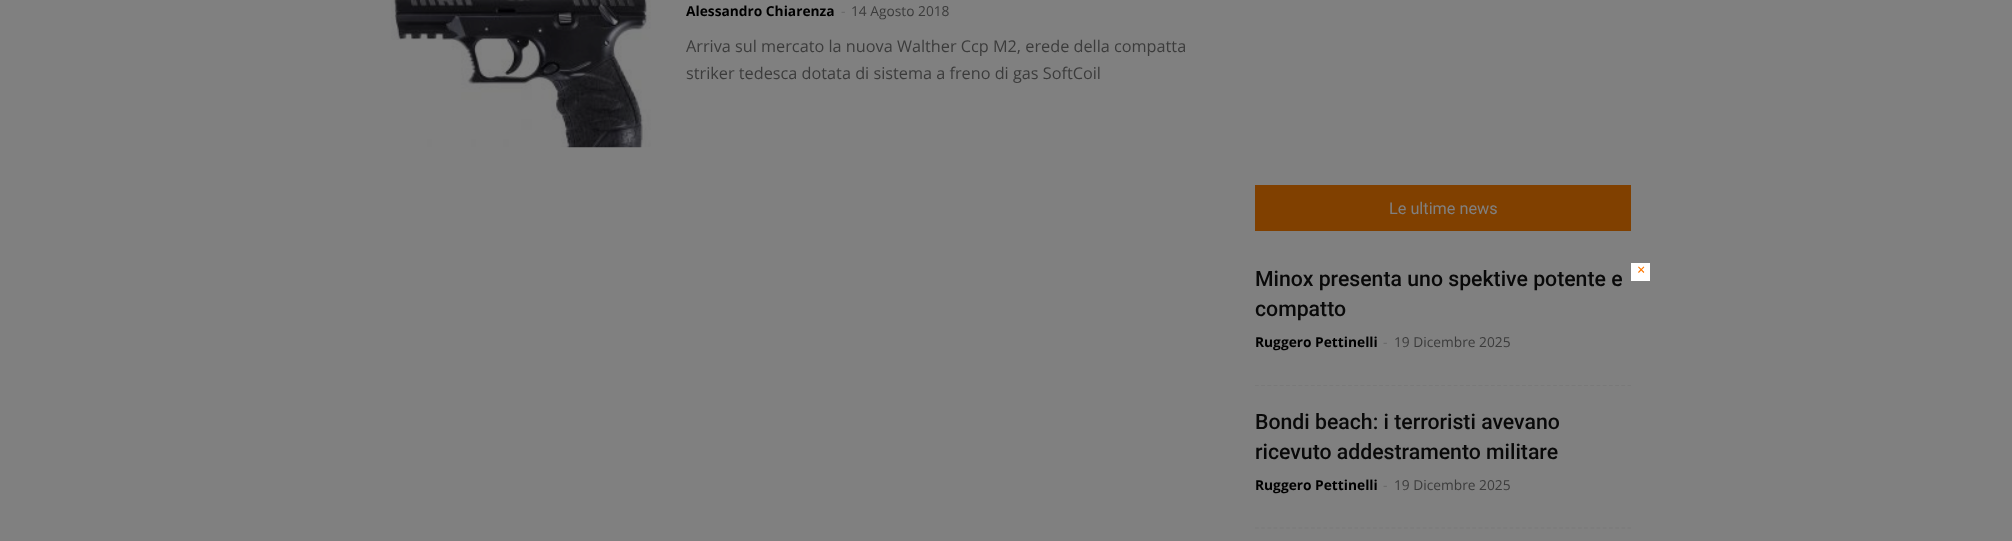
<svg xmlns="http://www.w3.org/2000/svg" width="2012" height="541">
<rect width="100%" height="100%" fill="#808080"/>
<image x="391" y="0" width="260" height="148" href="media/1.png"/>
<text x="686" y="16" style="font-family:Open Sans;font-size:13.75px;font-weight:bold;fill:#000">Alessandro Chiarenza</text>
<text x="841" y="16" style="font-family:Open Sans;font-size:13.75px;fill:#666">-</text>
<text x="851" y="16" style="font-family:Open Sans;font-size:13.75px;fill:#3b3b3b">14 Agosto 2018</text>
<text x="686" y="52" style="font-family:Open Sans;font-size:16.25px;fill:#3b3b3b">Arriva sul mercato la nuova Walther Ccp M2, erede della compatta</text>
<text x="686" y="79" style="font-family:Open Sans;font-size:16.25px;fill:#3b3b3b">striker tedesca dotata di sistema a freno di gas SoftCoil</text>
<rect x="1255" y="185" width="376" height="46" fill="#804000"/>
<text x="1389" y="214" style="font-family:Roboto;font-size:16.25px;fill:#808080">Le ultime news</text>
<path d="M1255 385.5h376" fill="none" stroke="#797979" stroke-width="1.2" stroke-dasharray="3.75 2.46"/>
<text x="1255" y="286" style="font-family:Roboto;font-size:21.25px;font-weight:500;fill:#090909">Minox presenta uno spektive potente e</text>
<text x="1255" y="316" style="font-family:Roboto;font-size:21.25px;font-weight:500;fill:#090909">compatto</text>
<text x="1255" y="347" style="font-family:Open Sans;font-size:13.75px;font-weight:bold;fill:#000">Ruggero Pettinelli</text>
<text x="1383" y="347" style="font-family:Open Sans;font-size:13.75px;fill:#666">-</text>
<text x="1394" y="347" style="font-family:Open Sans;font-size:13.75px;fill:#3b3b3b">19 Dicembre 2025</text>
<path d="M1255 528h376" fill="none" stroke="#797979" stroke-width="1.2" stroke-dasharray="3.75 2.46"/>
<text x="1255" y="429" style="font-family:Roboto;font-size:21.25px;font-weight:500;fill:#090909">Bondi beach: i terroristi avevano</text>
<text x="1255" y="459" style="font-family:Roboto;font-size:21.25px;font-weight:500;fill:#090909">ricevuto addestramento militare</text>
<text x="1255" y="490" style="font-family:Open Sans;font-size:13.75px;font-weight:bold;fill:#000">Ruggero Pettinelli</text>
<text x="1383" y="490" style="font-family:Open Sans;font-size:13.75px;fill:#666">-</text>
<text x="1394" y="490" style="font-family:Open Sans;font-size:13.75px;fill:#3b3b3b">19 Dicembre 2025</text>
<rect x="1631" y="263" width="19" height="18" fill="#fff"/>
<text x="1636" y="276" style="font-family:Montserrat;font-size:18px;fill:#ff7800">×</text>
</svg>
